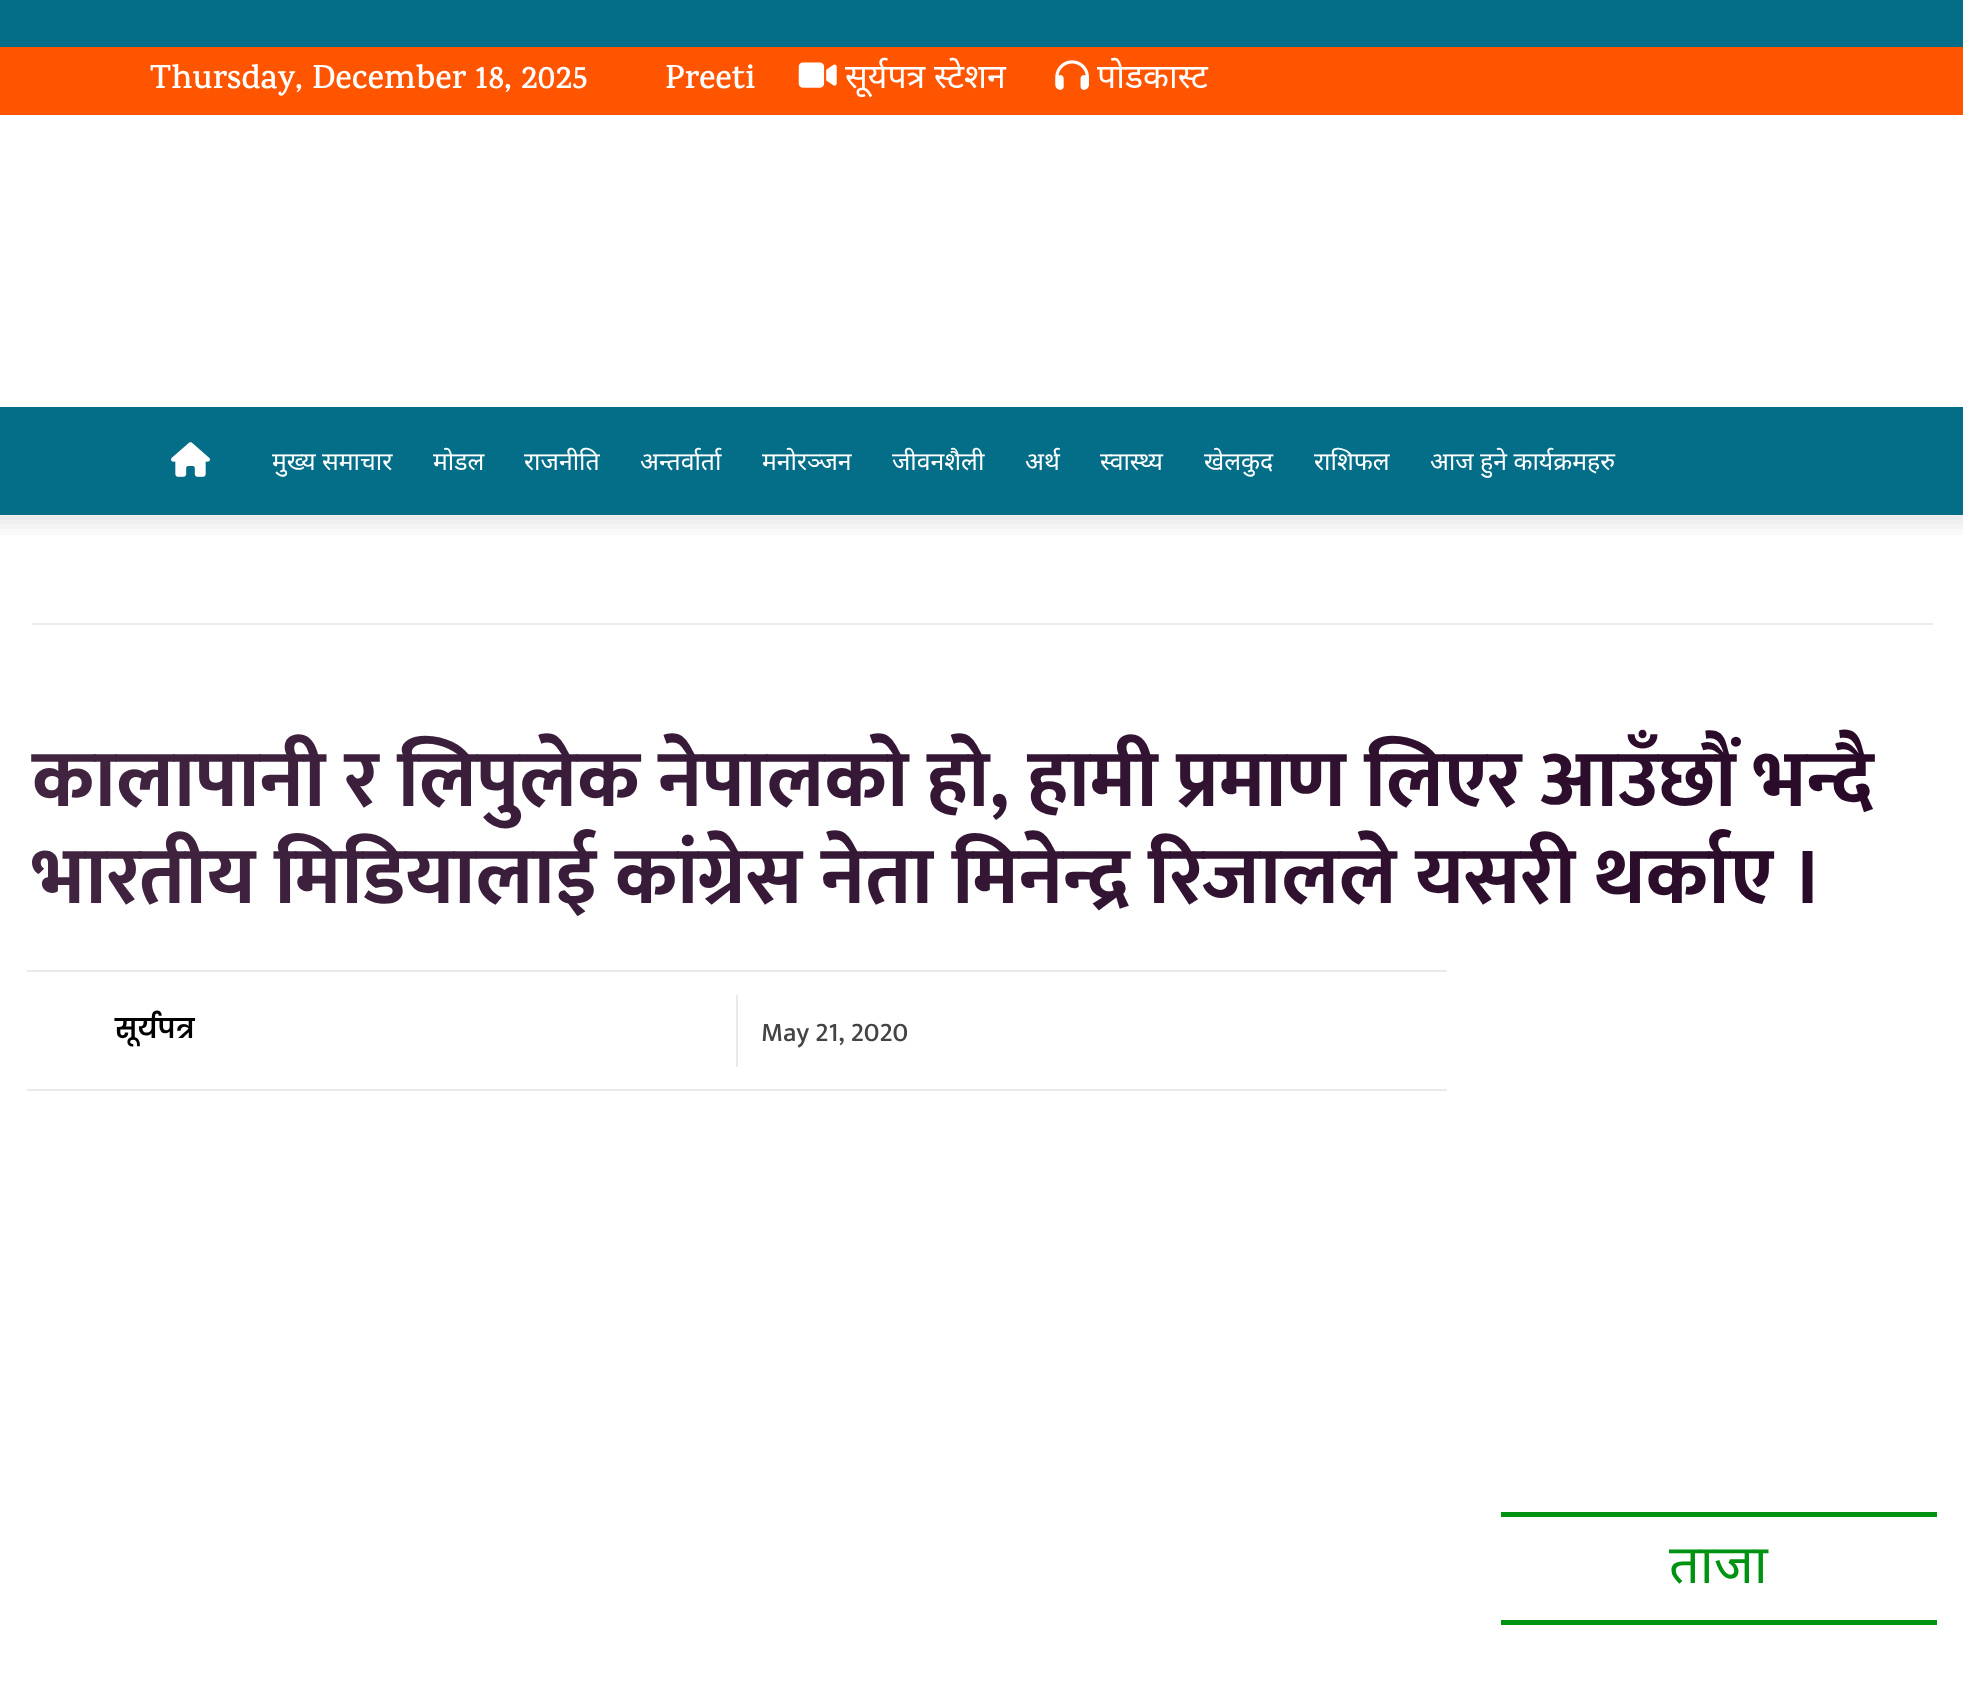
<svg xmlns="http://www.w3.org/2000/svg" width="1963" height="1705">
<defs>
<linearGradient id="g1" gradientUnits="userSpaceOnUse" x1="1933" y1="831" x2="32" y2="831"><stop offset="0" stop-color="#280928"/><stop offset="1" stop-color="#402440"/></linearGradient>
</defs>
<rect width="100%" height="100%" fill="#fff"/>
<rect width="1963" height="47" fill="#046d87"/>
<rect y="47" width="1963" height="68" fill="#ff5400"/>
<text x="150" y="88" style="font-family:Karma;font-size:33.75px;font-weight:600;fill:#fff">Thursday, December 18, 2025</text>
<text x="665" y="88" style="font-family:Karma;font-size:33.75px;font-weight:600;fill:#fff">Preeti</text>
<image x="798" y="62" width="39" height="26" href="media/1.png"/>
<text x="845" y="88" style="font-family:Noto Sans;font-size:33.75px;fill:#fff">सूर्यपत्र स्टेशन</text>
<image x="1055" y="60" width="34" height="30" href="media/2.png"/>
<text x="1097" y="88" style="font-family:Noto Sans;font-size:33.75px;fill:#fff">पोडकास्ट</text>
<rect y="407" width="1963" height="108" fill="#046d87"/>
<image x="171" y="442" width="39" height="35" href="media/3.png"/>
<text x="272" y="470" style="font-family:Noto Sans;font-size:24.75px;fill:#fff">मुख्य समाचार</text>
<text x="433" y="470" style="font-family:Noto Sans;font-size:24.75px;fill:#fff">माेडल</text>
<text x="524" y="470" style="font-family:Noto Sans;font-size:24.75px;fill:#fff">राजनीति</text>
<text x="640" y="470" style="font-family:Noto Sans;font-size:24.75px;fill:#fff">अन्तर्वार्ता</text>
<text x="762" y="470" style="font-family:Noto Sans;font-size:24.75px;fill:#fff">मनोरञ्जन</text>
<text x="892" y="470" style="font-family:Noto Sans;font-size:24.75px;fill:#fff">जीवनशैली</text>
<text x="1025" y="470" style="font-family:Noto Sans;font-size:24.75px;fill:#fff">अर्थ</text>
<text x="1100" y="470" style="font-family:Noto Sans;font-size:24.75px;fill:#fff">स्वास्थ्य</text>
<text x="1204" y="470" style="font-family:Noto Sans;font-size:24.75px;fill:#fff">खेलकुद</text>
<text x="1314" y="470" style="font-family:Noto Sans;font-size:24.75px;fill:#fff">राशिफल</text>
<text x="1430" y="470" style="font-family:Noto Sans;font-size:24.75px;fill:#fff">आज हुने कार्यक्रमहरु</text>
<image x="0" y="515" width="1963" height="20" href="media/4.png"/>
<rect x="32" y="623" width="1901" height="2" fill="#ebebeb"/>
<text x="32" y="806" style="font-family:Mukta;font-size:81px;font-weight:bold;fill:url(#g1)">कालापानी र लिपुलेक नेपालको हो, हामी प्रमाण लिएर आउँछौं भन्दै</text>
<text x="32" y="903" style="font-family:Mukta;font-size:81px;font-weight:bold;fill:url(#g1)">भारतीय मिडियालाई कांग्रेस नेता मिनेन्द्र रिजालले यसरी थर्काए ।</text>
<rect x="27" y="970" width="1420" height="2" fill="#eaeaea"/>
<rect x="27" y="1089" width="1420" height="2" fill="#eaeaea"/>
<text x="115" y="1038" style="font-family:Poppins;font-size:27px;font-weight:600;fill:#000">सूर्यपत्र</text>
<rect x="736" y="995" width="2" height="72" fill="#eaeaea"/>
<text x="761" y="1041" style="font-family:Mukta;font-size:27px;font-weight:500;fill:#444">May 21, 2020</text>
<rect x="1501" y="1512" width="436" height="5" fill="#009311"/>
<text x="1669" y="1583" style="font-family:Noto Sans;font-size:54px;fill:#009311">ताजा</text>
<rect x="1501" y="1620" width="436" height="5" fill="#009311"/>
</svg>
